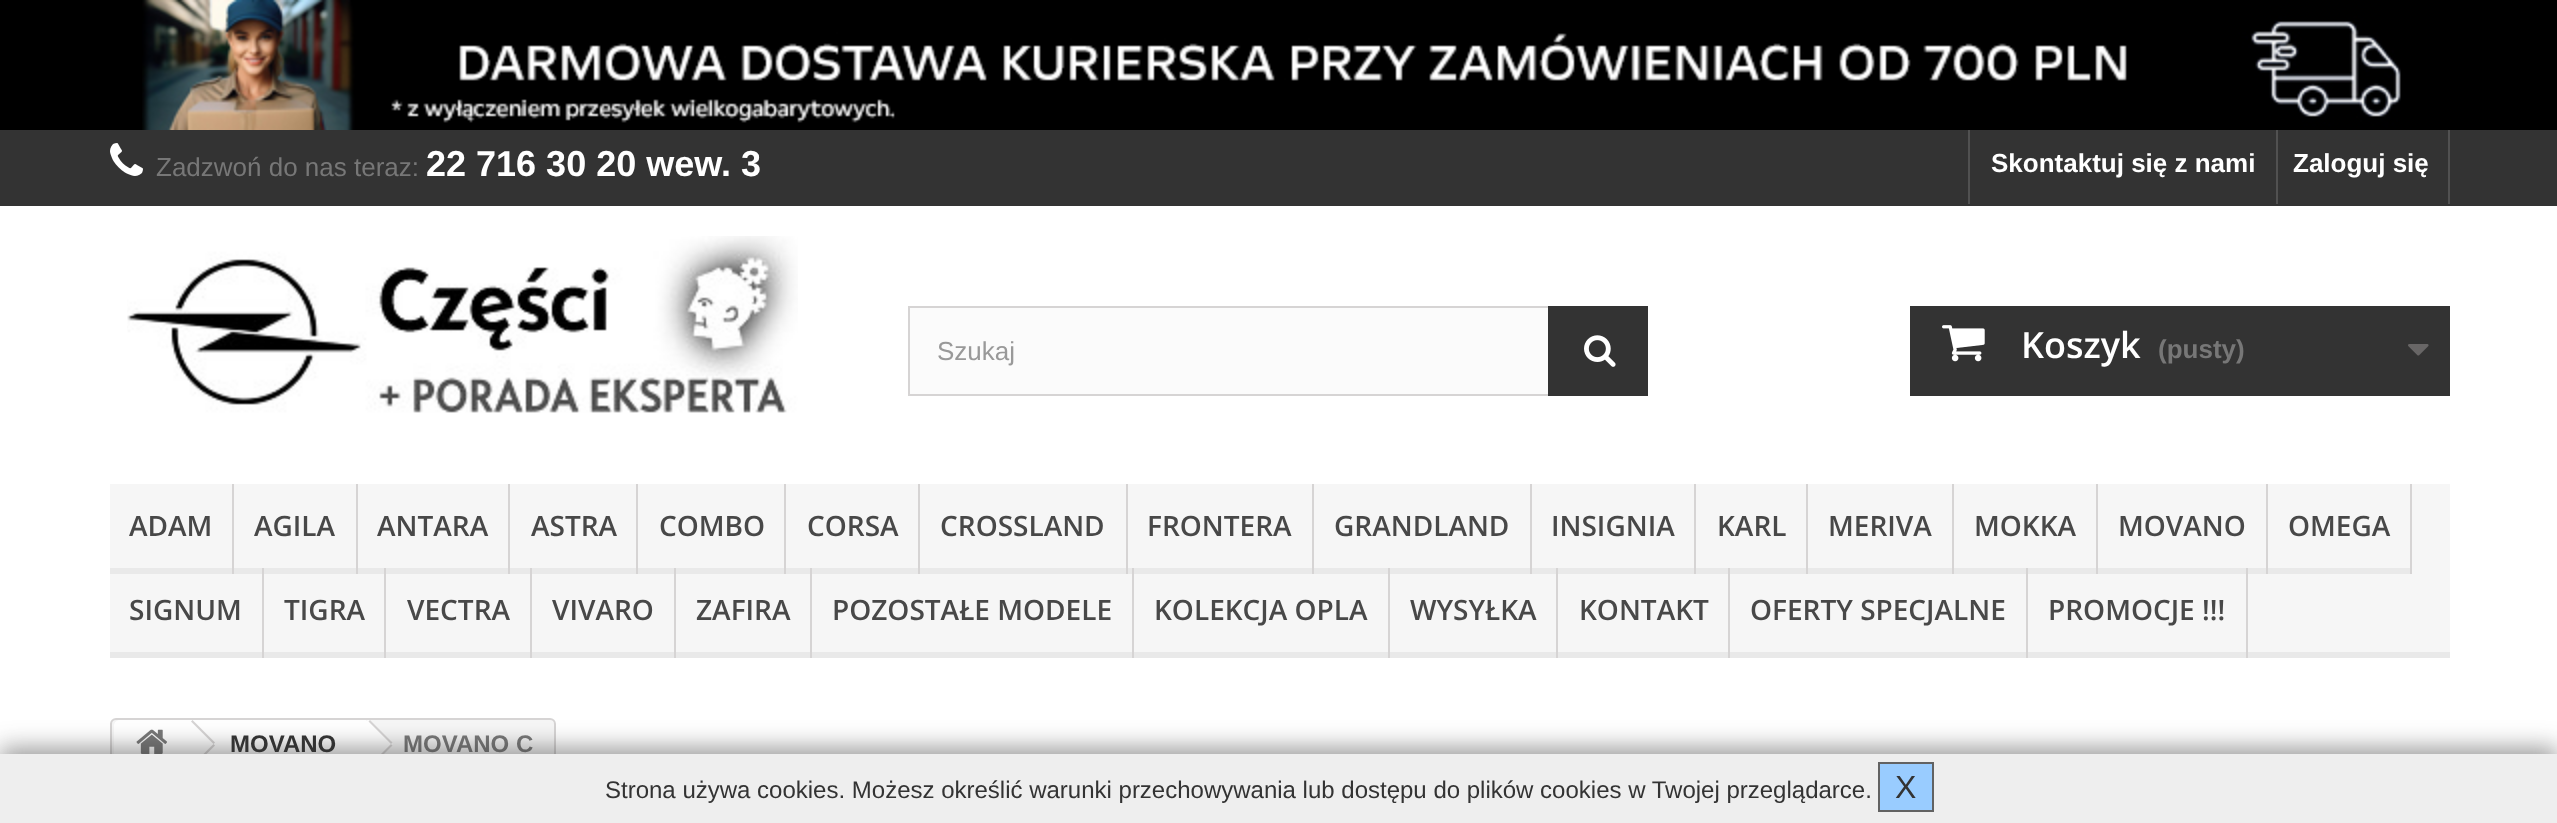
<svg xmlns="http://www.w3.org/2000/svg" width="2557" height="823">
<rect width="100%" height="100%" fill="#fff"/>
<rect width="2557" height="130" fill="#000"/>
<image x="142" y="0" width="2259" height="130" href="media/1.png"/>
<rect y="130" width="2557" height="76" fill="#333"/>
<image x="110" y="143" width="33" height="33" href="media/2.png"/>
<text x="156" y="176" style="font-family:Liberation Sans;font-size:26px;fill:#777">Zadzwoń do nas teraz:</text>
<text x="426" y="176" style="font-family:Liberation Sans;font-size:36px;font-weight:bold;fill:#fff">22 716 30 20 wew. 3</text>
<rect x="1968" y="130" width="2" height="74" fill="#515151"/>
<text x="1991" y="172" style="font-family:Liberation Sans;font-size:26px;font-weight:bold;fill:#fff">Skontaktuj się z nami</text>
<rect x="2448" y="130" width="2" height="74" fill="#515151"/>
<rect x="2276" y="130" width="2" height="74" fill="#515151"/>
<text x="2293" y="172" style="font-family:Liberation Sans;font-size:26px;font-weight:bold;fill:#fff">Zaloguj się</text>
<image x="127" y="236" width="671" height="177" href="media/3.png"/>
<rect x="910" y="308" width="638" height="86" fill="#fbfbfb"/>
<rect x="909" y="307" width="738" height="88" fill="none" stroke="#d6d4d4" stroke-width="2"/>
<text x="937" y="360" style="font-family:Liberation Sans;font-size:26px;fill:#999">Szukaj</text>
<rect x="1548" y="306" width="100" height="90" fill="#333"/>
<image x="1584" y="335" width="32" height="32" href="media/4.png"/>
<rect x="1910" y="306" width="540" height="90" fill="#333"/>
<image x="1942" y="325" width="43" height="37" href="media/5.png"/>
<text x="2021" y="358" style="font-family:Open Sans;font-size:36px;font-weight:600;fill:#fff">Koszyk</text>
<text x="2158" y="358" style="font-family:Liberation Sans;font-size:26px;font-weight:bold;fill:#777">(pusty)</text>
<image x="2408" y="344" width="21" height="12" href="media/6.png"/>
<rect x="110" y="484" width="2340" height="168" fill="#f6f6f6"/>
<rect x="110" y="652" width="2340" height="6" fill="#e9e9e9"/>
<rect x="232" y="484" width="2" height="90" fill="#d6d4d4"/>
<rect x="110" y="568" width="122" height="6" fill="#e9e9e9"/>
<text x="129" y="536" style="font-family:Open Sans;font-size:28px;font-weight:600;fill:#484848">ADAM</text>
<rect x="356" y="484" width="2" height="90" fill="#d6d4d4"/>
<rect x="234" y="568" width="122" height="6" fill="#e9e9e9"/>
<text x="254" y="536" style="font-family:Open Sans;font-size:28px;font-weight:600;fill:#484848">AGILA</text>
<rect x="508" y="484" width="2" height="90" fill="#d6d4d4"/>
<rect x="358" y="568" width="150" height="6" fill="#e9e9e9"/>
<text x="377" y="536" style="font-family:Open Sans;font-size:28px;font-weight:600;fill:#484848">ANTARA</text>
<rect x="636" y="484" width="2" height="90" fill="#d6d4d4"/>
<rect x="510" y="568" width="126" height="6" fill="#e9e9e9"/>
<text x="531" y="536" style="font-family:Open Sans;font-size:28px;font-weight:600;fill:#484848">ASTRA</text>
<rect x="784" y="484" width="2" height="90" fill="#d6d4d4"/>
<rect x="638" y="568" width="146" height="6" fill="#e9e9e9"/>
<text x="659" y="536" style="font-family:Open Sans;font-size:28px;font-weight:600;fill:#484848">COMBO</text>
<rect x="918" y="484" width="2" height="90" fill="#d6d4d4"/>
<rect x="786" y="568" width="132" height="6" fill="#e9e9e9"/>
<text x="807" y="536" style="font-family:Open Sans;font-size:28px;font-weight:600;fill:#484848">CORSA</text>
<rect x="1126" y="484" width="2" height="90" fill="#d6d4d4"/>
<rect x="920" y="568" width="206" height="6" fill="#e9e9e9"/>
<text x="940" y="536" style="font-family:Open Sans;font-size:28px;font-weight:600;fill:#484848">CROSSLAND</text>
<rect x="1312" y="484" width="2" height="90" fill="#d6d4d4"/>
<rect x="1128" y="568" width="184" height="6" fill="#e9e9e9"/>
<text x="1147" y="536" style="font-family:Open Sans;font-size:28px;font-weight:600;fill:#484848">FRONTERA</text>
<rect x="1530" y="484" width="2" height="90" fill="#d6d4d4"/>
<rect x="1314" y="568" width="216" height="6" fill="#e9e9e9"/>
<text x="1334" y="536" style="font-family:Open Sans;font-size:28px;font-weight:600;fill:#484848">GRANDLAND</text>
<rect x="1694" y="484" width="2" height="90" fill="#d6d4d4"/>
<rect x="1532" y="568" width="162" height="6" fill="#e9e9e9"/>
<text x="1551" y="536" style="font-family:Open Sans;font-size:28px;font-weight:600;fill:#484848">INSIGNIA</text>
<rect x="1806" y="484" width="2" height="90" fill="#d6d4d4"/>
<rect x="1696" y="568" width="110" height="6" fill="#e9e9e9"/>
<text x="1717" y="536" style="font-family:Open Sans;font-size:28px;font-weight:600;fill:#484848">KARL</text>
<rect x="1952" y="484" width="2" height="90" fill="#d6d4d4"/>
<rect x="1808" y="568" width="144" height="6" fill="#e9e9e9"/>
<text x="1828" y="536" style="font-family:Open Sans;font-size:28px;font-weight:600;fill:#484848">MERIVA</text>
<rect x="2096" y="484" width="2" height="90" fill="#d6d4d4"/>
<rect x="1954" y="568" width="142" height="6" fill="#e9e9e9"/>
<text x="1974" y="536" style="font-family:Open Sans;font-size:28px;font-weight:600;fill:#484848">MOKKA</text>
<rect x="2266" y="484" width="2" height="90" fill="#d6d4d4"/>
<rect x="2098" y="568" width="168" height="6" fill="#e9e9e9"/>
<text x="2118" y="536" style="font-family:Open Sans;font-size:28px;font-weight:600;fill:#484848">MOVANO</text>
<rect x="2410" y="484" width="2" height="90" fill="#d6d4d4"/>
<rect x="2268" y="568" width="142" height="6" fill="#e9e9e9"/>
<text x="2288" y="536" style="font-family:Open Sans;font-size:28px;font-weight:600;fill:#484848">OMEGA</text>
<rect x="262" y="568" width="2" height="90" fill="#d6d4d4"/>
<text x="129" y="620" style="font-family:Open Sans;font-size:28px;font-weight:600;fill:#484848">SIGNUM</text>
<rect x="384" y="568" width="2" height="90" fill="#d6d4d4"/>
<text x="284" y="620" style="font-family:Open Sans;font-size:28px;font-weight:600;fill:#484848">TIGRA</text>
<rect x="530" y="568" width="2" height="90" fill="#d6d4d4"/>
<text x="407" y="620" style="font-family:Open Sans;font-size:28px;font-weight:600;fill:#484848">VECTRA</text>
<rect x="674" y="568" width="2" height="90" fill="#d6d4d4"/>
<text x="552" y="620" style="font-family:Open Sans;font-size:28px;font-weight:600;fill:#484848">VIVARO</text>
<rect x="810" y="568" width="2" height="90" fill="#d6d4d4"/>
<text x="696" y="620" style="font-family:Open Sans;font-size:28px;font-weight:600;fill:#484848">ZAFIRA</text>
<rect x="1132" y="568" width="2" height="90" fill="#d6d4d4"/>
<text x="832" y="620" style="font-family:Open Sans;font-size:28px;font-weight:600;fill:#484848">POZOSTAŁE MODELE</text>
<rect x="1388" y="568" width="2" height="90" fill="#d6d4d4"/>
<text x="1154" y="620" style="font-family:Open Sans;font-size:28px;font-weight:600;fill:#484848">KOLEKCJA OPLA</text>
<rect x="1556" y="568" width="2" height="90" fill="#d6d4d4"/>
<text x="1410" y="620" style="font-family:Open Sans;font-size:28px;font-weight:600;fill:#484848">WYSYŁKA</text>
<rect x="1728" y="568" width="2" height="90" fill="#d6d4d4"/>
<text x="1579" y="620" style="font-family:Open Sans;font-size:28px;font-weight:600;fill:#484848">KONTAKT</text>
<rect x="2026" y="568" width="2" height="90" fill="#d6d4d4"/>
<text x="1750" y="620" style="font-family:Open Sans;font-size:28px;font-weight:600;fill:#484848">OFERTY SPECJALNE</text>
<rect x="2246" y="568" width="2" height="90" fill="#d6d4d4"/>
<text x="2048" y="620" style="font-family:Open Sans;font-size:28px;font-weight:600;fill:#484848">PROMOCJE !!!</text>
<rect x="111" y="719" width="444" height="52" rx="5" fill="#f6f6f6" stroke="#d6d4d4" stroke-width="2"/>
<path d="M120 720h70v50h-70c-3.5 0-6-2.5-6-6v-38c0-3.5 2.5-6 6-6z" fill="#fff"/>
<image x="136" y="729" width="31" height="25" href="media/7.png"/>
<rect x="190" y="720" width="176" height="34" fill="#fff"/>
<path d="M194 721l20 20c1 2 1 4 0 6l-20 20c-2 1-4 1-6 0l-20-20c-1-2-1-4 0-6l20-20c2-1 4-1 6 0z" fill="#fff"/>
<path d="M192.5 720l22.5 22.5l-1.5 1.5l-22.5-22.5zm21 24l1.5 1.5l-22.5 22.5l-1.5-1.5z" fill="#d6d4d4"/>
<text x="230" y="752" style="font-family:Liberation Sans;font-size:24px;font-weight:bold;fill:#333">MOVANO</text>
<path d="M371 721l20 20c2 2 2 4 0 6l-20 20c-1 1-4 1-5 0l-20-20c-2-2-2-4 0-6l20-20c1-1 4-1 5 0z" fill="#fff"/>
<path d="M370 720l22.5 22.5l-1.5 1.5l-22.5-22.5zm21 24l1.5 1.5l-22.5 22.5l-1.5-1.5z" fill="#d6d4d4"/>
<text x="403" y="752" style="font-family:Liberation Sans;font-size:24px;font-weight:bold;fill:#777">MOVANO C</text>
<rect y="748" width="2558" height="70" fill="#32323280" filter="blur(12px)"/>
<rect y="754" width="2557" height="69" fill="#eee"/>
<text x="605" y="798" style="font-family:Liberation Sans;font-size:24px;fill:#333">Strona używa cookies. Możesz określić warunki przechowywania lub dostępu do plików cookies w Twojej przeglądarce.</text>
<rect x="1879" y="763" width="54" height="48" fill="#9cf" stroke="#626262" stroke-width="2"/>
<text x="1895" y="798" style="font-family:Liberation Sans;font-size:32px;fill:#333">X</text>
</svg>
